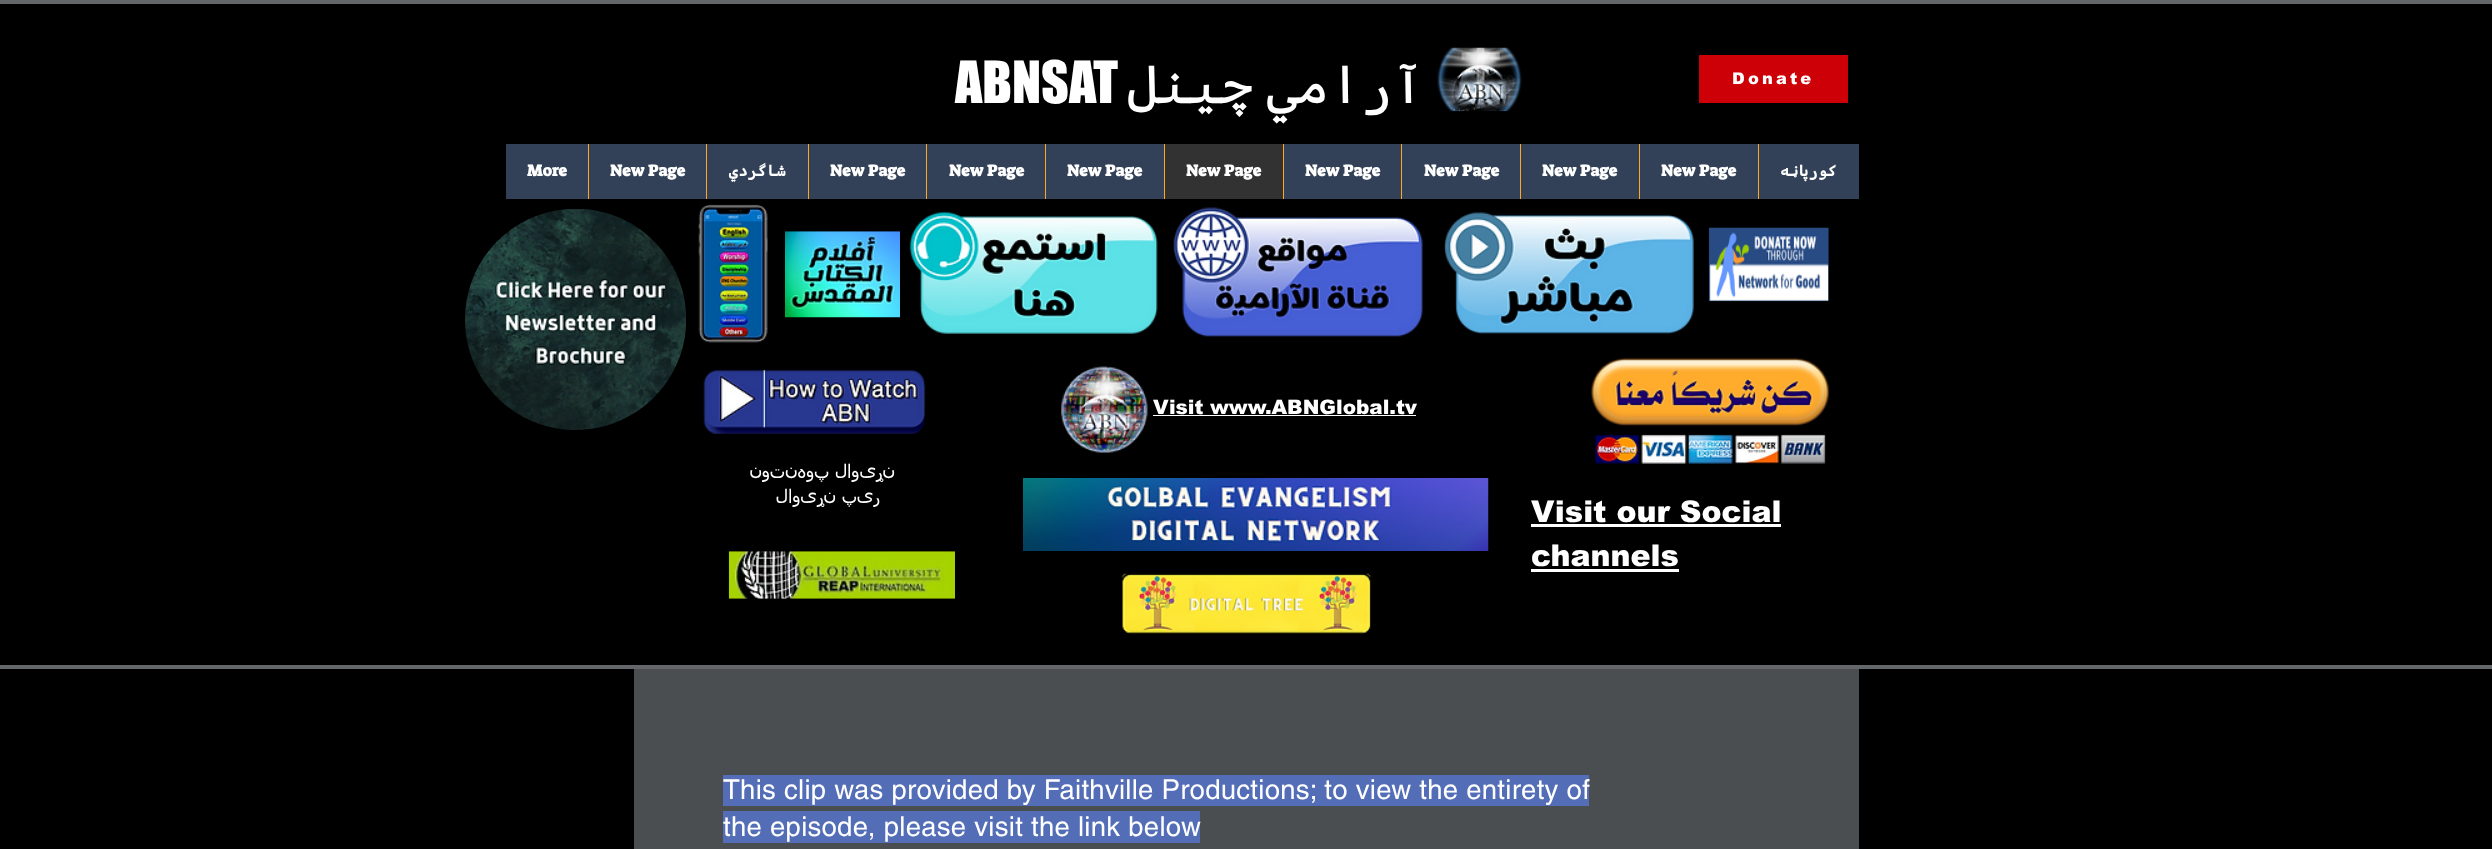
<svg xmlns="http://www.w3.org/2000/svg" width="2492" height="849">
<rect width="100%" height="100%" fill="#000"/>
<rect width="2492" height="4" fill="#636769"/>
<rect y="665" width="2492" height="4" fill="#636769"/>
<text x="955" y="103" style="font-family:'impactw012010';font-size:53.75px;fill:#fff">ABNSAT</text>
<text x="1424" y="103" word-spacing="-18" style="font-family:Cascadia Code;font-size:53.75px;direction:rtl;fill:#fff">آرامي چینل</text>
<image x="1437" y="47" width="85" height="65" href="media/1.png"/>
<rect x="1699" y="55" width="149" height="48" fill="#cc0006"/>
<text x="1732" y="84" style="font-family:arial;font-size:16.25px;font-weight:900;letter-spacing:3.25px;fill:#fff">Donate</text>
<rect x="506" y="144" width="1353" height="55" fill="#324158"/>
<text x="527" y="176" style="font-family:Suez One;font-size:16.25px;font-weight:bold;fill:#fff">More</text>
<rect x="588" y="144" width="1" height="55" fill="#ffa724"/>
<text x="610" y="176" style="font-family:Suez One;font-size:16.25px;font-weight:bold;fill:#fff">New Page</text>
<rect x="706" y="144" width="1" height="55" fill="#ffa724"/>
<text x="786" y="176" style="font-family:Cascadia Code;font-size:16.25px;font-weight:bold;direction:rtl;fill:#fff">شاگردي</text>
<rect x="808" y="144" width="1" height="55" fill="#ffa724"/>
<text x="830" y="176" style="font-family:Suez One;font-size:16.25px;font-weight:bold;fill:#fff">New Page</text>
<rect x="926" y="144" width="1" height="55" fill="#ffa724"/>
<text x="949" y="176" style="font-family:Suez One;font-size:16.25px;font-weight:bold;fill:#fff">New Page</text>
<rect x="1045" y="144" width="1" height="55" fill="#ffa724"/>
<text x="1067" y="176" style="font-family:Suez One;font-size:16.25px;font-weight:bold;fill:#fff">New Page</text>
<rect x="1165" y="144" width="118" height="55" fill="#323232"/>
<rect x="1164" y="144" width="1" height="55" fill="#ffa724"/>
<text x="1186" y="176" style="font-family:Suez One;font-size:16.25px;font-weight:bold;fill:#fff">New Page</text>
<rect x="1283" y="144" width="1" height="55" fill="#ffa724"/>
<text x="1305" y="176" style="font-family:Suez One;font-size:16.25px;font-weight:bold;fill:#fff">New Page</text>
<rect x="1401" y="144" width="1" height="55" fill="#ffa724"/>
<text x="1424" y="176" style="font-family:Suez One;font-size:16.25px;font-weight:bold;fill:#fff">New Page</text>
<rect x="1520" y="144" width="1" height="55" fill="#ffa724"/>
<text x="1542" y="176" style="font-family:Suez One;font-size:16.25px;font-weight:bold;fill:#fff">New Page</text>
<rect x="1639" y="144" width="1" height="55" fill="#ffa724"/>
<text x="1661" y="176" style="font-family:Suez One;font-size:16.25px;font-weight:bold;fill:#fff">New Page</text>
<rect x="1758" y="144" width="1" height="55" fill="#ffa724"/>
<text x="1837" y="176" style="font-family:Cascadia Code;font-size:16.25px;font-weight:bold;direction:rtl;fill:#fff">کورپاڼه</text>
<image x="465" y="209" width="221" height="221" href="media/2.png"/>
<image x="698" y="204" width="70" height="139" href="media/3.png"/>
<image x="785" y="231" width="115" height="87" href="media/4.png"/>
<image x="909" y="211" width="249" height="123" href="media/5.png"/>
<image x="1173" y="207" width="250" height="130" href="media/6.png"/>
<image x="1444" y="212" width="250" height="122" href="media/7.png"/>
<image x="1708" y="227" width="121" height="75" href="media/8.png"/>
<image x="703" y="369" width="223" height="66" href="media/9.png"/>
<image x="1061" y="366" width="87" height="87" href="media/10.png"/>
<text x="1153" y="414" style="font-family:arial;font-size:20px;font-weight:900;fill:#fff">Visit www.ABNGlobal.tv</text>
<rect x="1153" y="415" width="263" height="1" fill="#fff"/>
<image x="1591" y="357" width="238" height="107" href="media/11.png"/>
<text x="895" y="478" style="font-family:tahoma;font-size:18.75px;direction:rtl;fill:#fff">نړیوال پوهنتون</text>
<text x="880" y="503" style="font-family:tahoma;font-size:18.75px;direction:rtl;fill:#fff">ریپ نړیوال</text>
<image x="1023" y="478" width="466" height="73" href="media/12.png"/>
<text x="1531" y="522" style="font-family:arial;font-size:30px;font-weight:900;fill:#fff">Visit our Social</text>
<rect x="1531" y="524" width="250" height="3" fill="#fff"/>
<text x="1531" y="566" style="font-family:arial;font-size:30px;font-weight:900;fill:#fff">channels</text>
<rect x="1531" y="569" width="148" height="3" fill="#fff"/>
<image x="728" y="551" width="227" height="48" href="media/13.png"/>
<image x="1121" y="572" width="251" height="62" href="media/14.png"/>
<rect x="634" y="669" width="1225" height="180" fill="#4b4e50"/>
<rect x="723" y="775" width="866" height="31" fill="#536eb7"/>
<text x="723" y="799" style="font-family:helvetica;font-size:27.5px;letter-spacing:0.28px;fill:#fff">This clip was provided by Faithville Productions; to view the entirety of</text>
<rect x="723" y="811" width="477" height="32" fill="#536eb7"/>
<text x="723" y="836" style="font-family:helvetica;font-size:27.5px;letter-spacing:0.28px;fill:#fff">the episode, please visit the link below</text>
</svg>
